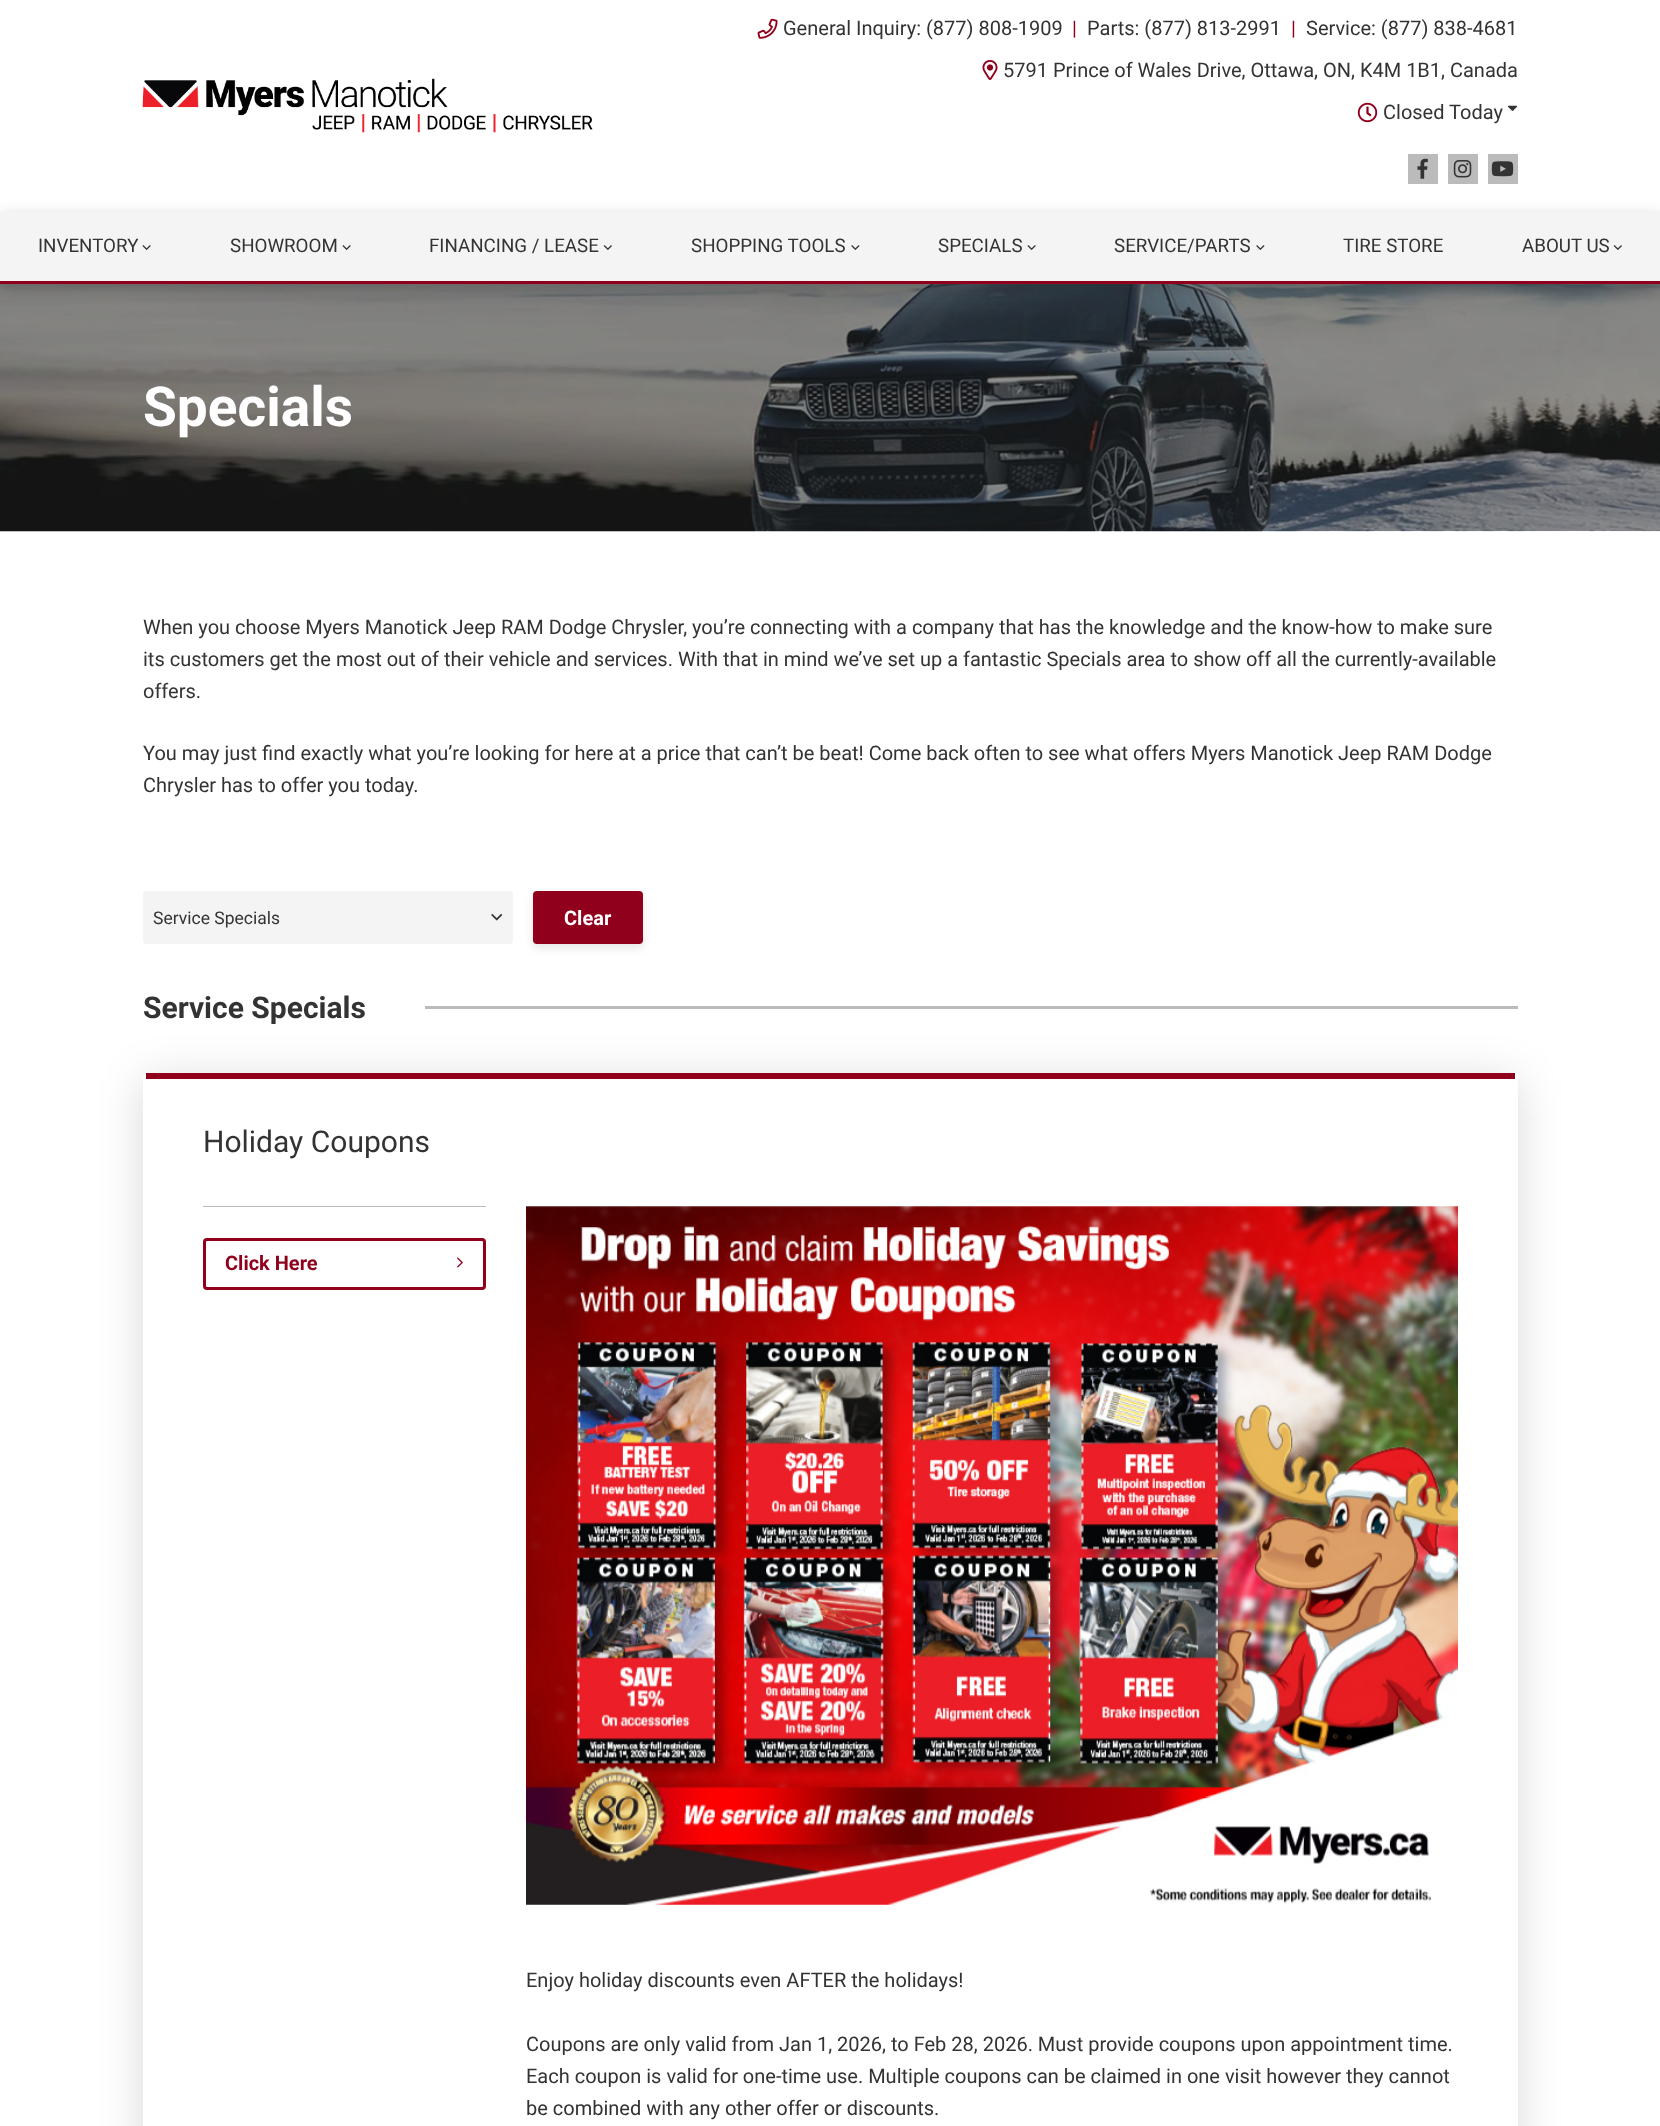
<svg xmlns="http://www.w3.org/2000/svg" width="1660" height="2126">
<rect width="100%" height="100%" fill="#fff"/>
<image x="142" y="78" width="451" height="55" href="media/1.png"/>
<image x="757" y="18" width="21" height="21" href="media/2.png"/>
<text x="783" y="35" style="font-family:Roboto;font-size:20px;fill:#333">General Inquiry: (877) 808-1909</text>
<text x="1072" y="35" style="font-family:Roboto;font-size:20px;fill:#90001d">|</text>
<text x="1087" y="35" style="font-family:Roboto;font-size:20px;fill:#333">Parts: (877) 813-2991</text>
<text x="1291" y="35" style="font-family:Roboto;font-size:20px;fill:#90001d">|</text>
<text x="1306" y="35" style="font-family:Roboto;font-size:20px;fill:#333">Service: (877) 838-4681</text>
<image x="982" y="60" width="16" height="20" href="media/3.png"/>
<text x="1003" y="77" style="font-family:Roboto;font-size:20px;fill:#333">5791 Prince of Wales Drive, Ottawa, ON, K4M 1B1, Canada</text>
<image x="1357" y="102" width="21" height="21" href="media/4.png"/>
<text x="1383" y="119" style="font-family:Roboto;font-size:20px;fill:#333">Closed Today</text>
<image x="1507" y="105" width="11" height="6" href="media/5.png"/>
<rect x="1408" y="154" width="30" height="30" fill="#bbb"/>
<image x="1417" y="158" width="11" height="21" href="media/6.png"/>
<rect x="1448" y="154" width="30" height="30" fill="#bbb"/>
<image x="1453" y="160" width="19" height="18" href="media/7.png"/>
<rect x="1488" y="154" width="30" height="30" fill="#bbb"/>
<image x="1491" y="161" width="23" height="16" href="media/8.png"/>
<image x="0" y="284" width="1660" height="248" href="media/12.png"/>
<rect y="216" width="1660" height="73" fill="#00000033" filter="blur(7.5px)"/>
<rect y="211" width="1660" height="70" fill="#f4f4f4"/>
<rect y="281" width="1660" height="3" fill="#90001d"/>
<text x="38" y="252" style="font-family:Roboto;font-size:18.75px;fill:#333">INVENTORY</text>
<image x="142" y="245" width="9" height="5" href="media/9.png"/>
<text x="230" y="252" style="font-family:Roboto;font-size:18.75px;fill:#333">SHOWROOM</text>
<image x="342" y="245" width="9" height="5" href="media/9.png"/>
<text x="429" y="252" style="font-family:Roboto;font-size:18.75px;fill:#333">FINANCING / LEASE</text>
<image x="603" y="245" width="9" height="5" href="media/10.png"/>
<text x="691" y="252" style="font-family:Roboto;font-size:18.75px;fill:#333">SHOPPING TOOLS</text>
<image x="851" y="245" width="9" height="5" href="media/11.png"/>
<text x="938" y="252" style="font-family:Roboto;font-size:18.75px;fill:#333">SPECIALS</text>
<image x="1027" y="245" width="9" height="5" href="media/9.png"/>
<text x="1114" y="252" style="font-family:Roboto;font-size:18.75px;fill:#333">SERVICE/PARTS</text>
<image x="1256" y="245" width="9" height="5" href="media/11.png"/>
<text x="1343" y="252" style="font-family:Roboto;font-size:18.75px;fill:#333">TIRE STORE</text>
<text x="1522" y="252" style="font-family:Roboto;font-size:18.75px;fill:#333">ABOUT US</text>
<image x="1613" y="245" width="9" height="5" href="media/10.png"/>
<text x="143" y="426" style="font-family:Roboto;font-size:55px;font-weight:bold;fill:#fff">Specials</text>
<text x="143" y="634" style="font-family:Roboto;font-size:20px;fill:#333">When you choose Myers Manotick Jeep RAM Dodge Chrysler, you’re connecting with a company that has the knowledge and the know-how to make sure</text>
<text x="143" y="666" style="font-family:Roboto;font-size:20px;fill:#333">its customers get the most out of their vehicle and services. With that in mind we’ve set up a fantastic Specials area to show off all the currently-available</text>
<text x="143" y="698" style="font-family:Roboto;font-size:20px;fill:#333">offers.</text>
<text x="143" y="760" style="font-family:Roboto;font-size:20px;fill:#333">You may just find exactly what you’re looking for here at a price that can’t be beat! Come back often to see what offers Myers Manotick Jeep RAM Dodge</text>
<text x="143" y="792" style="font-family:Roboto;font-size:20px;fill:#333">Chrysler has to offer you today.</text>
<rect x="143" y="891" width="370" height="53" rx="4" fill="#f4f4f4"/>
<text x="153" y="924" style="font-family:Roboto;font-size:17.5px;fill:#333">Service Specials</text>
<image x="491" y="914" width="12" height="7" href="media/13.png"/>
<rect x="533" y="895" width="110" height="53" rx="4" fill="#0000001a" filter="blur(5px)"/>
<rect x="533" y="891" width="110" height="53" rx="4" fill="#90001d"/>
<text x="564" y="925" style="font-family:Roboto;font-size:20px;font-weight:bold;fill:#fff">Clear</text>
<rect x="143" y="1080" width="1375" height="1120" rx="6" fill="#00000026" filter="blur(22.5px)"/>
<text x="143" y="1018" style="font-family:Roboto;font-size:30px;font-weight:bold;fill:#333">Service Specials</text>
<rect x="425" y="1006" width="1093" height="3" fill="#bbb"/>
<rect x="143" y="1073" width="1375" height="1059" rx="6" fill="#fff"/>
<rect x="146" y="1073" width="1369" height="6" fill="#90001d"/>
<text x="203" y="1152" style="font-family:Roboto;font-size:30px;fill:#333">Holiday Coupons</text>
<rect x="203" y="1206" width="283" height="1" fill="#bbb"/>
<rect x="204.5" y="1239.5" width="280" height="49" rx="2.5" fill="none" stroke="#90001d" stroke-width="3"/>
<text x="225" y="1270" style="font-family:Roboto;font-size:20px;font-weight:bold;fill:#90001d">Click Here</text>
<image x="457" y="1257" width="6" height="11" href="media/14.png"/>
<image x="526" y="1206" width="932" height="699" href="media/15.png"/>
<text x="526" y="1987" style="font-family:Roboto;font-size:20px;fill:#333">Enjoy holiday discounts even AFTER the holidays!</text>
<text x="526" y="2051" style="font-family:Roboto;font-size:20px;fill:#333">Coupons are only valid from Jan 1, 2026, to Feb 28, 2026. Must provide coupons upon appointment time.</text>
<text x="526" y="2083" style="font-family:Roboto;font-size:20px;fill:#333">Each coupon is valid for one-time use. Multiple coupons can be claimed in one visit however they cannot</text>
<text x="526" y="2115" style="font-family:Roboto;font-size:20px;fill:#333">be combined with any other offer or discounts.</text>
</svg>
